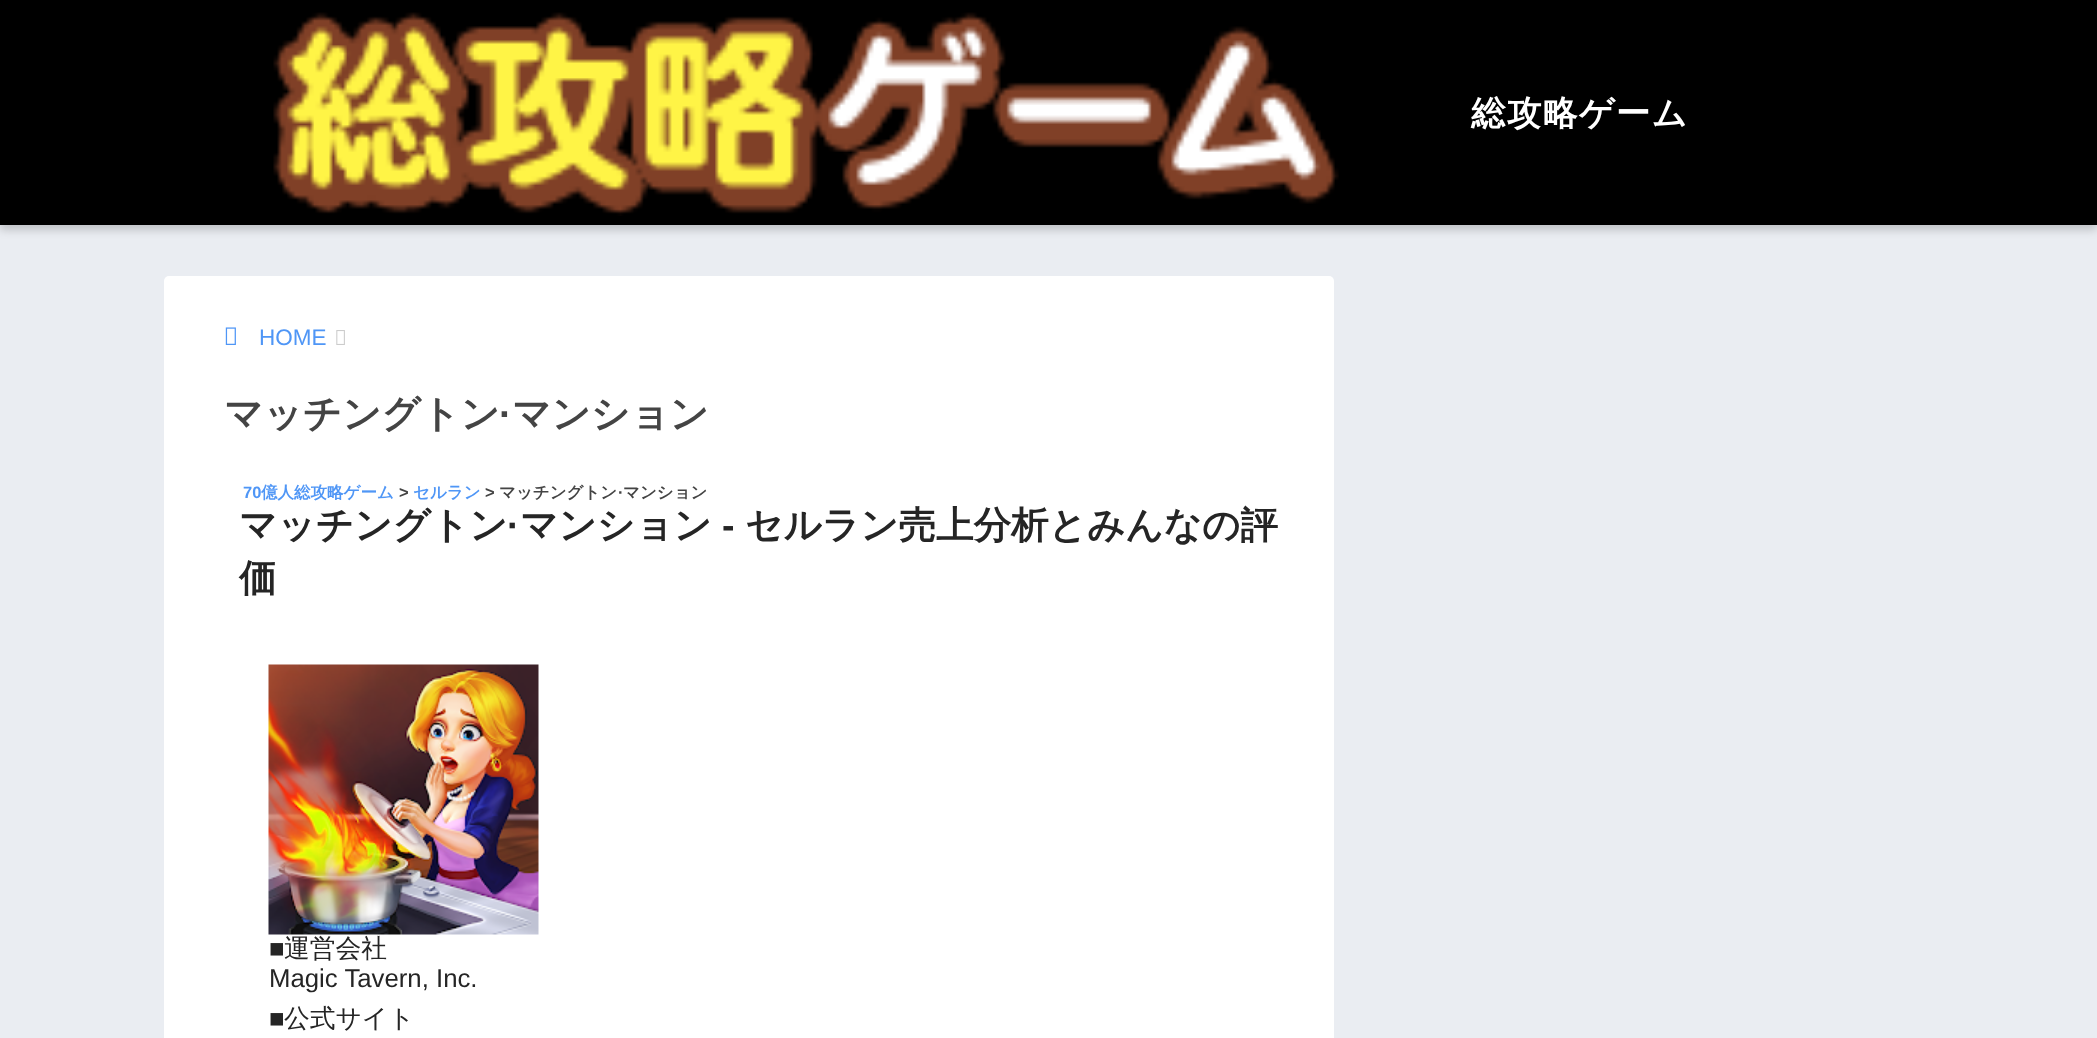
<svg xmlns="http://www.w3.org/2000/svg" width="2097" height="1038">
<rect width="100%" height="100%" fill="#eaedf2"/>
<rect y="5" width="2097" height="225" fill="#0000002e" filter="blur(4.5px)"/>
<rect width="2097" height="225" fill="#000"/>
<image x="273" y="12" width="1066" height="204" href="media/1.png"/>
<text x="1471" y="125" style="font-family:WenQuanYi Zen Hei;font-size:34.5px;font-weight:bold;letter-spacing:1.5px;fill:#fff">総攻略ゲーム</text>
<rect x="164" y="276" width="1170" height="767" rx="5" fill="#fff"/>
<image x="225" y="327" width="11" height="18" href="media/2.png"/>
<text x="259" y="345" style="font-family:Liberation Sans;font-size:22.5px;fill:#4f96f6">HOME</text>
<image x="336" y="330" width="9" height="15" href="media/3.png"/>
<text x="224" y="427" style="font-family:WenQuanYi Zen Hei;font-size:38.5px;font-weight:bold;fill:#444">マッチングトン</text>
<text x="499" y="427" style="font-family:Liberation Sans;font-size:38.5px;font-weight:bold;fill:#444">·</text>
<text x="512" y="427" style="font-family:WenQuanYi Zen Hei;font-size:38.5px;font-weight:bold;fill:#444">マンション</text>
<text x="243" y="498" style="font-family:Liberation Sans;font-size:16.5px;font-weight:bold;fill:#4f96f6">70</text>
<text x="261" y="498" style="font-family:WenQuanYi Zen Hei;font-size:16.5px;font-weight:bold;fill:#4f96f6">億人総攻略ゲーム</text>
<text x="399" y="498" style="font-family:Liberation Sans;font-size:16.5px;font-weight:bold;fill:#444">&gt;</text>
<text x="413" y="498" style="font-family:WenQuanYi Zen Hei;font-size:16.5px;font-weight:bold;fill:#4f96f6">セルラン</text>
<text x="485" y="498" style="font-family:Liberation Sans;font-size:16.5px;font-weight:bold;fill:#444">&gt;</text>
<text x="499" y="498" style="font-family:WenQuanYi Zen Hei;font-size:16.5px;font-weight:bold;fill:#444">マッチングトン</text>
<text x="618" y="498" style="font-family:Liberation Sans;font-size:16.5px;font-weight:bold;fill:#444">·</text>
<text x="623" y="498" style="font-family:WenQuanYi Zen Hei;font-size:16.5px;font-weight:bold;fill:#444">マンション</text>
<text x="239" y="538" style="font-family:WenQuanYi Zen Hei;font-size:37.5px;font-weight:bold;fill:#252525">マッチングトン</text>
<text x="507" y="538" style="font-family:Liberation Sans;font-size:37.5px;font-weight:bold;fill:#252525">·</text>
<text x="520" y="538" style="font-family:WenQuanYi Zen Hei;font-size:37.5px;font-weight:bold;fill:#252525">マンション</text>
<text x="722" y="538" style="font-family:Liberation Sans;font-size:37.5px;font-weight:bold;fill:#252525">-</text>
<text x="745" y="538" style="font-family:WenQuanYi Zen Hei;font-size:37.5px;font-weight:bold;fill:#252525">セルラン売上分析とみんなの評</text>
<text x="239" y="591" style="font-family:WenQuanYi Zen Hei;font-size:37.5px;font-weight:bold;fill:#252525">価</text>
<image x="268" y="664" width="271" height="271" href="media/4.png"/>
<text x="269" y="957" style="font-family:Liberation Sans;font-size:25.75px;fill:#252525">■</text>
<text x="284" y="957" style="font-family:WenQuanYi Zen Hei;font-size:25.75px;font-weight:500;fill:#252525">運営会社</text>
<text x="269" y="987" style="font-family:Liberation Sans;font-size:25.75px;fill:#252525">Magic Tavern, Inc.</text>
<text x="269" y="1027" style="font-family:Liberation Sans;font-size:25.75px;fill:#252525">■</text>
<text x="284" y="1027" style="font-family:WenQuanYi Zen Hei;font-size:25.75px;font-weight:500;fill:#252525">公式サイト</text>
</svg>
